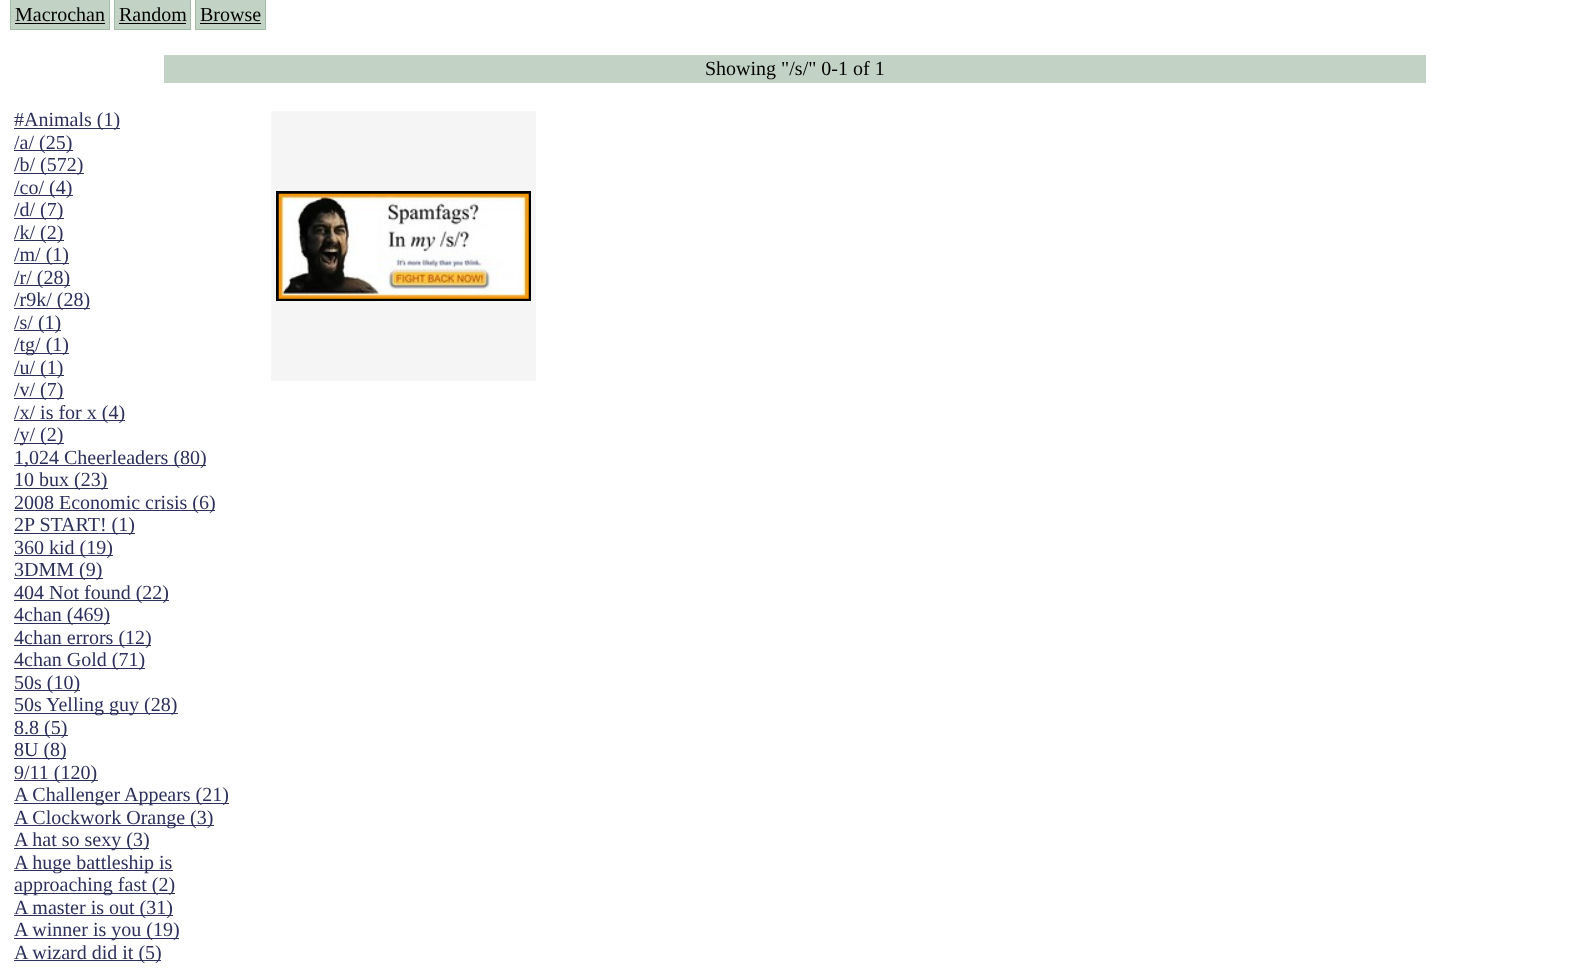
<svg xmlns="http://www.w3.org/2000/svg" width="1589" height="977">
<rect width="100%" height="100%" fill="#fff"/>
<rect x="10.5" y="-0.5" width="99" height="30" fill="#c2d3c5" stroke="#a3bca7"/>
<text x="15" y="21" style="font-family:Liberation Serif;font-size:20px;fill:#000">Macrochan</text>
<rect x="15" y="23" width="90" height="1" fill="#000"/>
<rect x="114.5" y="-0.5" width="76" height="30" fill="#c2d3c5" stroke="#a3bca7"/>
<text x="119" y="21" style="font-family:Liberation Serif;font-size:20px;fill:#000">Random</text>
<rect x="119" y="23" width="67" height="1" fill="#000"/>
<rect x="195.5" y="-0.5" width="70" height="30" fill="#c2d3c5" stroke="#a3bca7"/>
<text x="200" y="21" style="font-family:Liberation Serif;font-size:20px;fill:#000">Browse</text>
<rect x="200" y="23" width="61" height="1" fill="#000"/>
<rect x="164" y="55" width="1262" height="28" fill="#c2d3c5"/>
<text x="705" y="75" style="font-family:Liberation Serif;font-size:20px;fill:#000">Showing "/s/" 0-1 of 1</text>
<rect x="14" y="128" width="106" height="1" fill="#2d305b"/>
<text x="14" y="126" style="font-family:Liberation Serif;font-size:20px;fill:#2d305b">#Animals (1)</text>
<rect x="14" y="150" width="59" height="1" fill="#2d305b"/>
<text x="14" y="149" style="font-family:Liberation Serif;font-size:20px;fill:#2d305b">/a/ (25)</text>
<rect x="14" y="173" width="70" height="1" fill="#2d305b"/>
<text x="14" y="171" style="font-family:Liberation Serif;font-size:20px;fill:#2d305b">/b/ (572)</text>
<rect x="14" y="195" width="59" height="1" fill="#2d305b"/>
<text x="14" y="194" style="font-family:Liberation Serif;font-size:20px;fill:#2d305b">/co/ (4)</text>
<rect x="14" y="218" width="50" height="1" fill="#2d305b"/>
<text x="14" y="216" style="font-family:Liberation Serif;font-size:20px;fill:#2d305b">/d/ (7)</text>
<rect x="14" y="240" width="50" height="1" fill="#2d305b"/>
<text x="14" y="239" style="font-family:Liberation Serif;font-size:20px;fill:#2d305b">/k/ (2)</text>
<rect x="14" y="263" width="55" height="1" fill="#2d305b"/>
<text x="14" y="261" style="font-family:Liberation Serif;font-size:20px;fill:#2d305b">/m/ (1)</text>
<rect x="14" y="285" width="56" height="1" fill="#2d305b"/>
<text x="14" y="284" style="font-family:Liberation Serif;font-size:20px;fill:#2d305b">/r/ (28)</text>
<rect x="14" y="308" width="76" height="1" fill="#2d305b"/>
<text x="14" y="306" style="font-family:Liberation Serif;font-size:20px;fill:#2d305b">/r9k/ (28)</text>
<rect x="14" y="330" width="47" height="1" fill="#2d305b"/>
<text x="14" y="329" style="font-family:Liberation Serif;font-size:20px;fill:#2d305b">/s/ (1)</text>
<rect x="14" y="353" width="55" height="1" fill="#2d305b"/>
<text x="14" y="351" style="font-family:Liberation Serif;font-size:20px;fill:#2d305b">/tg/ (1)</text>
<rect x="14" y="375" width="50" height="1" fill="#2d305b"/>
<text x="14" y="374" style="font-family:Liberation Serif;font-size:20px;fill:#2d305b">/u/ (1)</text>
<rect x="14" y="398" width="50" height="1" fill="#2d305b"/>
<text x="14" y="396" style="font-family:Liberation Serif;font-size:20px;fill:#2d305b">/v/ (7)</text>
<rect x="14" y="420" width="111" height="1" fill="#2d305b"/>
<text x="14" y="419" style="font-family:Liberation Serif;font-size:20px;fill:#2d305b">/x/ is for x (4)</text>
<rect x="14" y="443" width="50" height="1" fill="#2d305b"/>
<text x="14" y="441" style="font-family:Liberation Serif;font-size:20px;fill:#2d305b">/y/ (2)</text>
<rect x="14" y="465" width="192" height="1" fill="#2d305b"/>
<text x="14" y="464" style="font-family:Liberation Serif;font-size:20px;fill:#2d305b">1,024 Cheerleaders (80)</text>
<rect x="14" y="488" width="94" height="1" fill="#2d305b"/>
<text x="14" y="486" style="font-family:Liberation Serif;font-size:20px;fill:#2d305b">10 bux (23)</text>
<rect x="14" y="510" width="201" height="1" fill="#2d305b"/>
<text x="14" y="509" style="font-family:Liberation Serif;font-size:20px;fill:#2d305b">2008 Economic crisis (6)</text>
<rect x="14" y="533" width="121" height="1" fill="#2d305b"/>
<text x="14" y="531" style="font-family:Liberation Serif;font-size:20px;fill:#2d305b">2P START! (1)</text>
<rect x="14" y="555" width="99" height="1" fill="#2d305b"/>
<text x="14" y="554" style="font-family:Liberation Serif;font-size:20px;fill:#2d305b">360 kid (19)</text>
<rect x="14" y="578" width="89" height="1" fill="#2d305b"/>
<text x="14" y="576" style="font-family:Liberation Serif;font-size:20px;fill:#2d305b">3DMM (9)</text>
<rect x="14" y="600" width="155" height="1" fill="#2d305b"/>
<text x="14" y="599" style="font-family:Liberation Serif;font-size:20px;fill:#2d305b">404 Not found (22)</text>
<rect x="14" y="623" width="96" height="1" fill="#2d305b"/>
<text x="14" y="621" style="font-family:Liberation Serif;font-size:20px;fill:#2d305b">4chan (469)</text>
<rect x="14" y="645" width="137" height="1" fill="#2d305b"/>
<text x="14" y="644" style="font-family:Liberation Serif;font-size:20px;fill:#2d305b">4chan errors (12)</text>
<rect x="14" y="668" width="131" height="1" fill="#2d305b"/>
<text x="14" y="666" style="font-family:Liberation Serif;font-size:20px;fill:#2d305b">4chan Gold (71)</text>
<rect x="14" y="690" width="66" height="1" fill="#2d305b"/>
<text x="14" y="689" style="font-family:Liberation Serif;font-size:20px;fill:#2d305b">50s (10)</text>
<rect x="14" y="713" width="164" height="1" fill="#2d305b"/>
<text x="14" y="711" style="font-family:Liberation Serif;font-size:20px;fill:#2d305b">50s Yelling guy (28)</text>
<rect x="14" y="735" width="54" height="1" fill="#2d305b"/>
<text x="14" y="734" style="font-family:Liberation Serif;font-size:20px;fill:#2d305b">8.8 (5)</text>
<rect x="14" y="758" width="52" height="1" fill="#2d305b"/>
<text x="14" y="756" style="font-family:Liberation Serif;font-size:20px;fill:#2d305b">8U (8)</text>
<rect x="14" y="780" width="84" height="1" fill="#2d305b"/>
<text x="14" y="779" style="font-family:Liberation Serif;font-size:20px;fill:#2d305b">9/11 (120)</text>
<rect x="14" y="803" width="215" height="1" fill="#2d305b"/>
<text x="14" y="801" style="font-family:Liberation Serif;font-size:20px;fill:#2d305b">A Challenger Appears (21)</text>
<rect x="14" y="825" width="200" height="1" fill="#2d305b"/>
<text x="14" y="824" style="font-family:Liberation Serif;font-size:20px;fill:#2d305b">A Clockwork Orange (3)</text>
<rect x="14" y="848" width="135" height="1" fill="#2d305b"/>
<text x="14" y="846" style="font-family:Liberation Serif;font-size:20px;fill:#2d305b">A hat so sexy (3)</text>
<rect x="14" y="870" width="159" height="1" fill="#2d305b"/>
<text x="14" y="869" style="font-family:Liberation Serif;font-size:20px;fill:#2d305b">A huge battleship is</text>
<rect x="14" y="893" width="161" height="1" fill="#2d305b"/>
<text x="14" y="891" style="font-family:Liberation Serif;font-size:20px;fill:#2d305b">approaching fast (2)</text>
<rect x="14" y="915" width="159" height="1" fill="#2d305b"/>
<text x="14" y="914" style="font-family:Liberation Serif;font-size:20px;fill:#2d305b">A master is out (31)</text>
<rect x="14" y="938" width="165" height="1" fill="#2d305b"/>
<text x="14" y="936" style="font-family:Liberation Serif;font-size:20px;fill:#2d305b">A winner is you (19)</text>
<rect x="14" y="960" width="147" height="1" fill="#2d305b"/>
<text x="14" y="959" style="font-family:Liberation Serif;font-size:20px;fill:#2d305b">A wizard did it (5)</text>
<rect x="271" y="111" width="265" height="270" fill="#f5f5f5"/>
<rect x="277.5" y="192.5" width="252" height="107" fill="none" stroke="#000" stroke-width="3"/>
<image x="278" y="193" width="251" height="106" href="media/1.png"/>
</svg>
